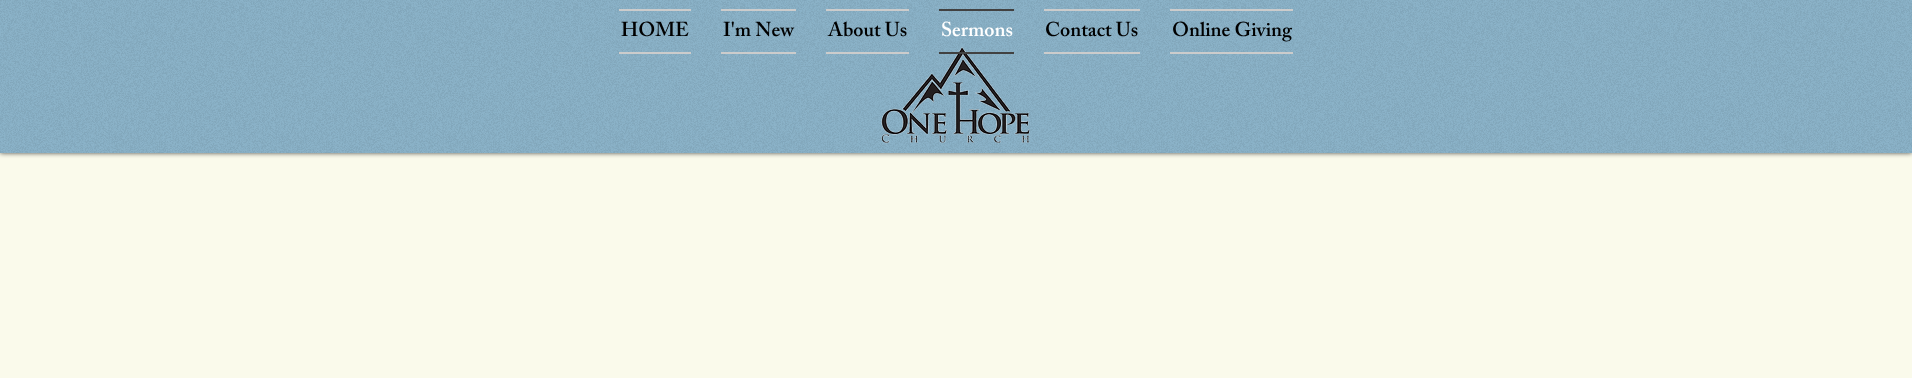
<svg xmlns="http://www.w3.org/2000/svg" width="1912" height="378">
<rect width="100%" height="100%" fill="#fafaeb"/>
<rect width="1912" height="153" fill="#000000b3" filter="blur(2.5px)"/>
<rect width="1912" height="153" fill="#8ab2c8"/>
<image x="0" y="0" width="1912" height="153" href="media/1.png"/>
<rect x="619" y="9" width="72" height="2" fill="#ccc"/>
<rect x="619" y="52" width="72" height="2" fill="#ccc"/>
<text x="621" y="36" style="font-family:'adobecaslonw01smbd';font-size:20px;font-weight:600;fill:#000">HOME</text>
<rect x="721" y="9" width="75" height="2" fill="#ccc"/>
<rect x="721" y="52" width="75" height="2" fill="#ccc"/>
<text x="723" y="36" style="font-family:'adobecaslonw01smbd';font-size:20px;font-weight:600;fill:#000">I'm New</text>
<rect x="826" y="9" width="83" height="2" fill="#ccc"/>
<image x="881" y="47" width="149" height="97" href="media/2.png"/>
<rect x="826" y="52" width="83" height="2" fill="#ccc"/>
<text x="828" y="36" style="font-family:'adobecaslonw01smbd';font-size:20px;font-weight:600;fill:#000">About Us</text>
<rect x="939" y="9" width="75" height="2" fill="#414141"/>
<rect x="939" y="52" width="75" height="2" fill="#414141"/>
<text x="941" y="36" style="font-family:'adobecaslonw01smbd';font-size:20px;font-weight:600;fill:#fff">Sermons</text>
<rect x="1044" y="9" width="96" height="2" fill="#ccc"/>
<rect x="1044" y="52" width="96" height="2" fill="#ccc"/>
<text x="1045" y="36" style="font-family:'adobecaslonw01smbd';font-size:20px;font-weight:600;fill:#000">Contact Us</text>
<rect x="1170" y="9" width="123" height="2" fill="#ccc"/>
<rect x="1170" y="52" width="123" height="2" fill="#ccc"/>
<text x="1172" y="36" style="font-family:'adobecaslonw01smbd';font-size:20px;font-weight:600;fill:#000">Online Giving</text>
</svg>
